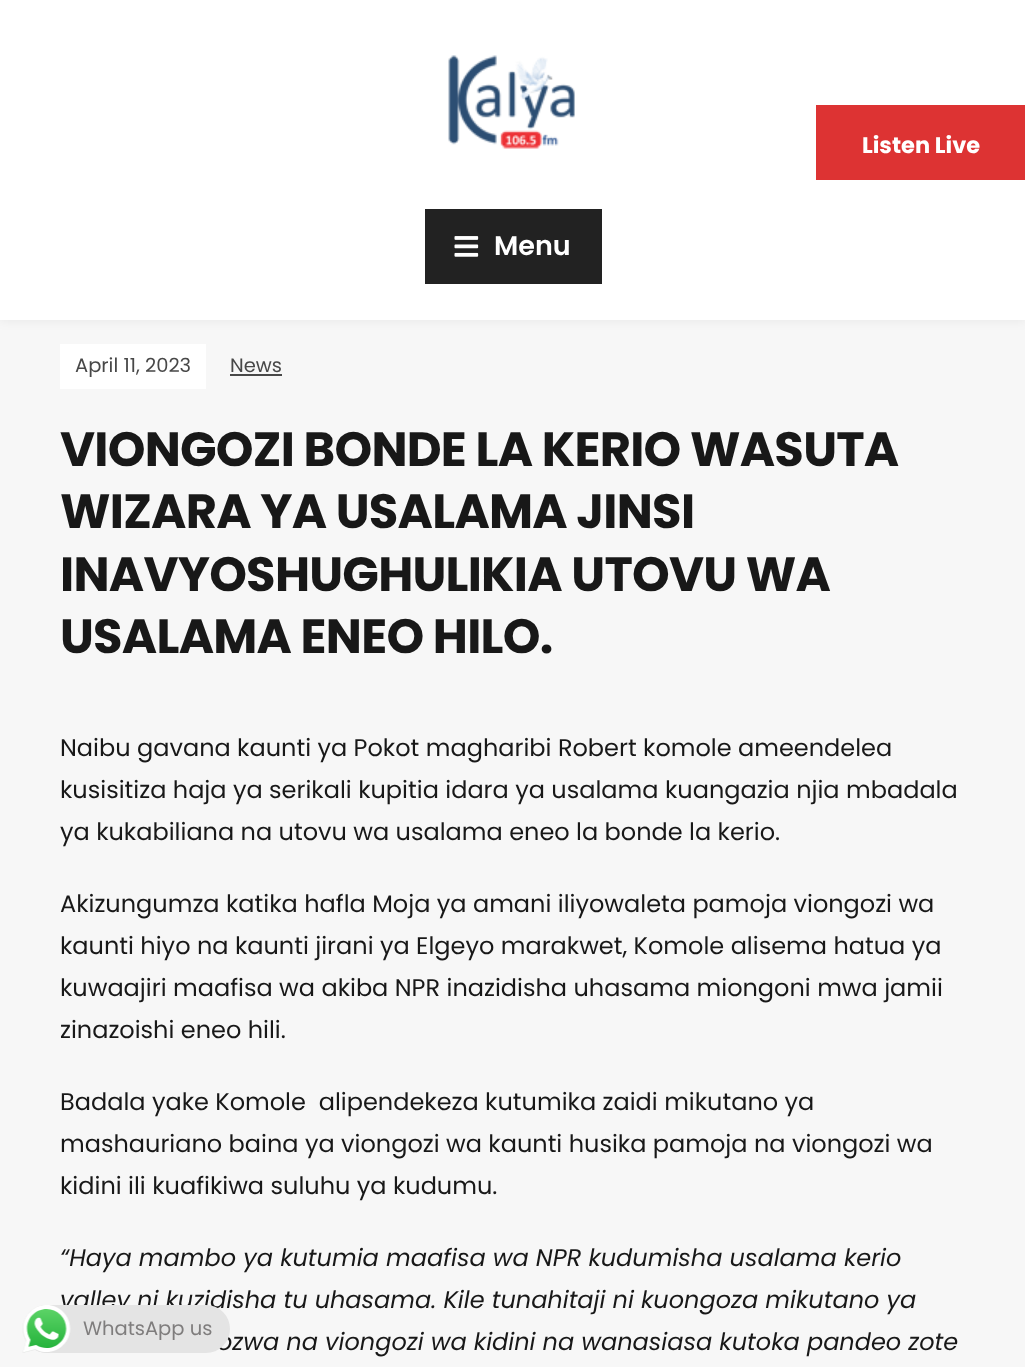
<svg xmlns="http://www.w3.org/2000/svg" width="1025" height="1367">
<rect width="100%" height="100%" fill="#f7f7f7"/>
<rect width="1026" height="320" fill="#00000012" filter="blur(6px)"/>
<rect width="1025" height="320" fill="#fff"/>
<rect x="816" y="105" width="209" height="75" fill="#d33"/>
<text x="862" y="153" style="font-family:Poppins;font-size:22.5px;font-weight:bold;fill:#fff">Listen Live</text>
<image x="448" y="55" width="127" height="94" href="media/1.png"/>
<rect x="425" y="209" width="177" height="75" fill="#222"/>
<image x="454" y="236" width="25" height="21" href="media/2.png"/>
<text x="494" y="255" style="font-family:Poppins;font-size:27px;font-weight:600;fill:#fff">Menu</text>
<rect x="60" y="344" width="146" height="45" fill="#fff"/>
<text x="75" y="372" style="font-family:Poppins;font-size:19.5px;fill:#484848">April 11, 2023</text>
<text x="230" y="372" style="font-family:Poppins;font-size:19.5px;fill:#484848">News</text>
<rect x="230" y="374" width="52" height="2" fill="#484848"/>
<text x="60" y="466" style="font-family:Poppins;font-size:48px;font-weight:bold;letter-spacing:-0.75px;fill:#181818">VIONGOZI BONDE LA KERIO WASUTA</text>
<text x="60" y="528" style="font-family:Poppins;font-size:48px;font-weight:bold;letter-spacing:-0.75px;fill:#181818">WIZARA YA USALAMA JINSI</text>
<text x="60" y="591" style="font-family:Poppins;font-size:48px;font-weight:bold;letter-spacing:-0.75px;fill:#181818">INAVYOSHUGHULIKIA UTOVU WA</text>
<text x="60" y="653" style="font-family:Poppins;font-size:48px;font-weight:bold;letter-spacing:-0.75px;fill:#181818">USALAMA ENEO HILO.</text>
<text x="60" y="756" style="font-family:Poppins;font-size:24px;fill:#181818">Naibu gavana kaunti ya Pokot magharibi Robert komole ameendelea</text>
<text x="60" y="798" style="font-family:Poppins;font-size:24px;fill:#181818">kusisitiza haja ya serikali kupitia idara ya usalama kuangazia njia mbadala</text>
<text x="60" y="840" style="font-family:Poppins;font-size:24px;fill:#181818">ya kukabiliana na utovu wa usalama eneo la bonde la kerio.</text>
<text x="60" y="912" style="font-family:Poppins;font-size:24px;fill:#181818">Akizungumza katika hafla Moja ya amani iliyowaleta pamoja viongozi wa</text>
<text x="60" y="954" style="font-family:Poppins;font-size:24px;fill:#181818">kaunti hiyo na kaunti jirani ya Elgeyo marakwet, Komole alisema hatua ya</text>
<text x="60" y="996" style="font-family:Poppins;font-size:24px;fill:#181818">kuwaajiri maafisa wa akiba NPR inazidisha uhasama miongoni mwa jamii</text>
<text x="60" y="1038" style="font-family:Poppins;font-size:24px;fill:#181818">zinazoishi eneo hili.</text>
<text x="60" y="1110" style="font-family:Poppins;font-size:24px;fill:#181818" xml:space="preserve">Badala yake Komole  alipendekeza kutumika zaidi mikutano ya</text>
<text x="60" y="1152" style="font-family:Poppins;font-size:24px;fill:#181818">mashauriano baina ya viongozi wa kaunti husika pamoja na viongozi wa</text>
<text x="60" y="1194" style="font-family:Poppins;font-size:24px;fill:#181818">kidini ili kuafikiwa suluhu ya kudumu.</text>
<text x="60" y="1266" style="font-family:Poppins;font-size:24px;font-style:italic;fill:#181818">“Haya mambo ya kutumia maafisa wa NPR kudumisha usalama kerio</text>
<text x="60" y="1308" style="font-family:Poppins;font-size:24px;font-style:italic;fill:#181818">valley ni kuzidisha tu uhasama. Kile tunahitaji ni kuongoza mikutano ya</text>
<text x="217" y="1350" style="font-family:Poppins;font-size:24px;font-style:italic;fill:#181818">ozwa na viongozi wa kidini na wanasiasa kutoka pandeo zote</text>
<rect x="23" y="1305" width="207" height="48" rx="24" fill="#e4e4e4"/>
<image x="22" y="1305" width="49" height="48" href="media/3.png"/>
<text x="83" y="1335" style="font-family:Poppins;font-size:19.5px;fill:#7f7d7d">WhatsApp us</text>
</svg>
